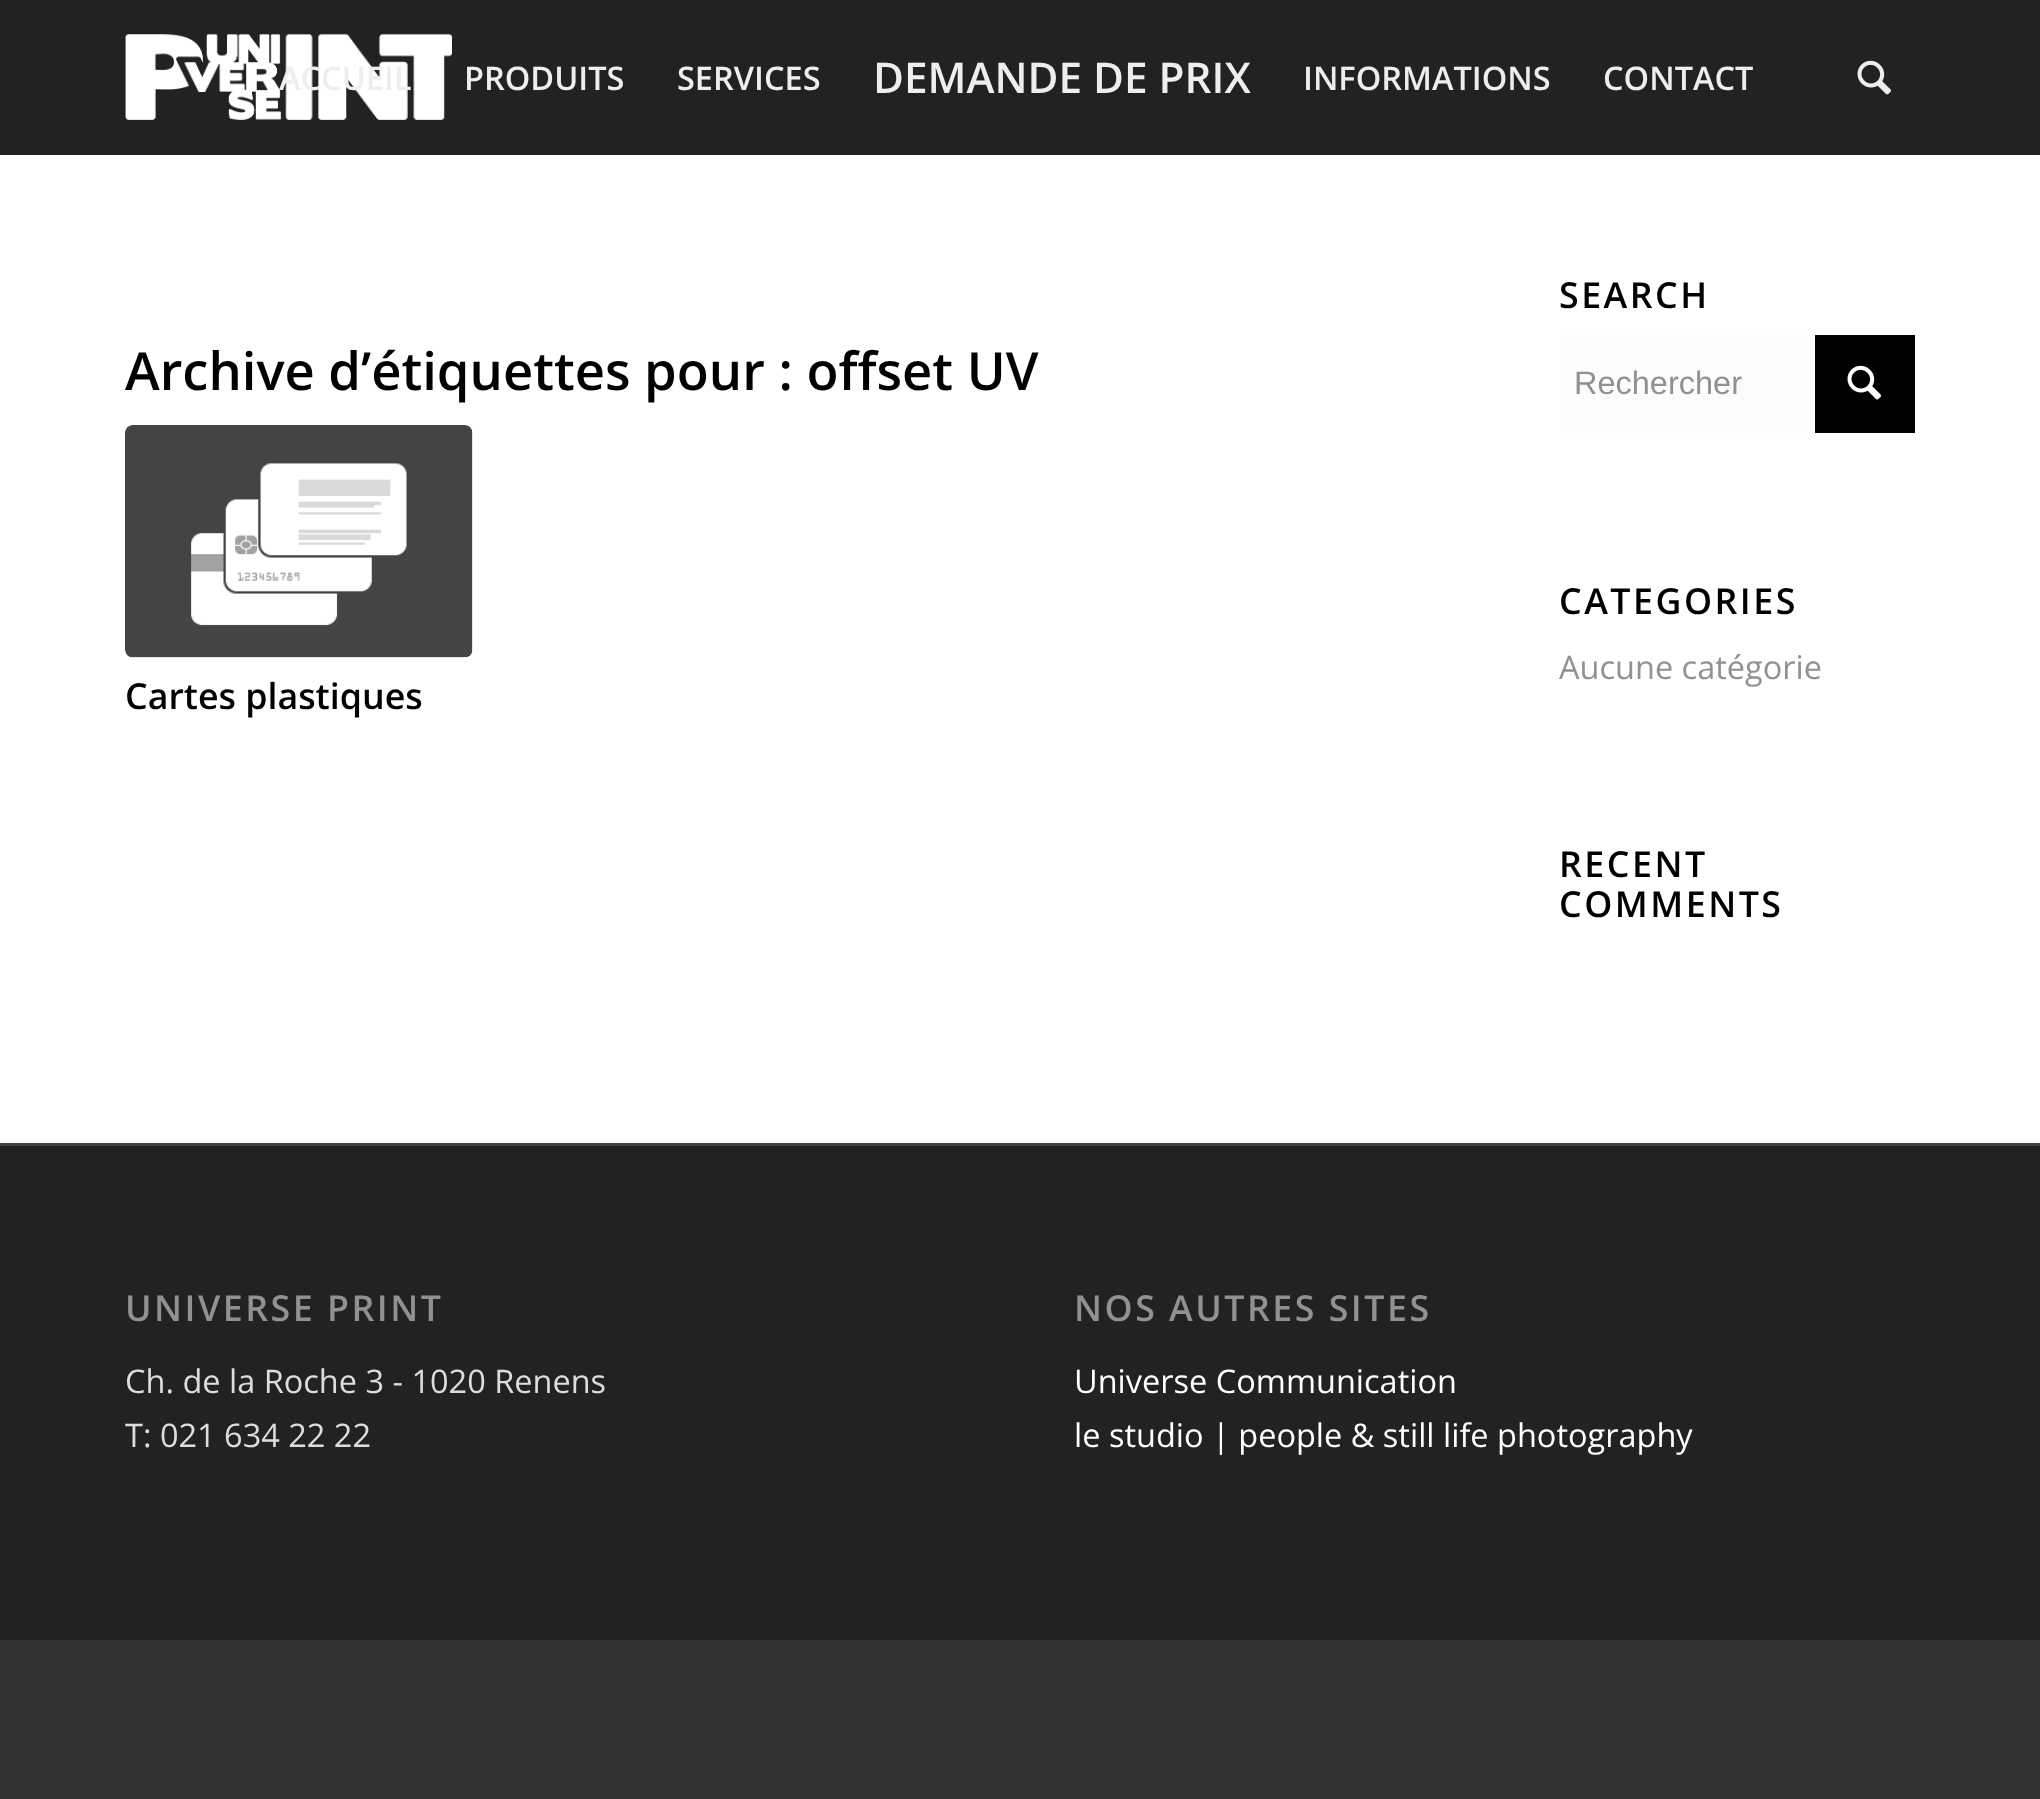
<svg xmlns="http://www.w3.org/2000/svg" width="2040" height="1799">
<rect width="100%" height="100%" fill="#333"/>
<rect width="2040" height="155" fill="#222"/>
<image x="125" y="34" width="327" height="86" href="media/1.png"/>
<text x="279" y="90" style="font-family:Open Sans;font-size:32.5px;font-weight:600;fill:#eee">ACCUEIL</text>
<text x="464" y="90" style="font-family:Open Sans;font-size:32.5px;font-weight:600;fill:#eee">PRODUITS</text>
<text x="677" y="90" style="font-family:Open Sans;font-size:32.5px;font-weight:600;fill:#eee">SERVICES</text>
<text x="873" y="93" style="font-family:Open Sans;font-size:42.25px;font-weight:600;fill:#eee">DEMANDE DE PRIX</text>
<text x="1303" y="90" style="font-family:Open Sans;font-size:32.5px;font-weight:600;fill:#eee">INFORMATIONS</text>
<text x="1603" y="90" style="font-family:Open Sans;font-size:32.5px;font-weight:600;fill:#eee">CONTACT</text>
<image x="1857" y="60" width="34" height="35" href="media/2.png"/>
<rect y="1146" width="2040" height="494" fill="#222"/>
<rect y="155" width="2040" height="988" fill="#fff"/>
<text x="125" y="390" style="font-family:Open Sans;font-size:52.5px;font-weight:600;fill:#000">Archive d’étiquettes pour : offset UV</text>
<rect x="125" y="425" width="348" height="233" rx="8" fill="#fcfcfc"/>
<image x="125" y="425" width="348" height="233" href="media/3.png"/>
<text x="125" y="709" style="font-family:Open Sans;font-size:35.75px;font-weight:600;fill:#000">Cartes plastiques</text>
<text x="1559" y="308" style="font-family:Open Sans;font-size:35.75px;font-weight:600;letter-spacing:2.5px;fill:#000">SEARCH</text>
<rect x="1560" y="335" width="255" height="98" fill="#fcfcfc"/>
<text x="1574" y="394" style="font-family:Liberation Sans;font-size:32.5px;fill:#919191">Rechercher</text>
<rect x="1815" y="335" width="100" height="98" fill="#000"/>
<image x="1847" y="365" width="34" height="35" href="media/4.png"/>
<text x="1559" y="614" style="font-family:Open Sans;font-size:35.75px;font-weight:600;letter-spacing:2.5px;fill:#000">CATEGORIES</text>
<text x="1559" y="679" style="font-family:Open Sans;font-size:32.5px;fill:#919191">Aucune catégorie</text>
<text x="1559" y="877" style="font-family:Open Sans;font-size:35.75px;font-weight:600;letter-spacing:2.5px;fill:#000">RECENT</text>
<text x="1559" y="917" style="font-family:Open Sans;font-size:35.75px;font-weight:600;letter-spacing:2.5px;fill:#000">COMMENTS</text>
<rect y="1143" width="2040" height="3" fill="#444"/>
<text x="125" y="1321" style="font-family:Open Sans;font-size:35.75px;font-weight:600;letter-spacing:2.5px;fill:#919191">UNIVERSE PRINT</text>
<text x="125" y="1393" style="font-family:Open Sans;font-size:32.5px;fill:#ddd">Ch. de la Roche 3 - 1020 Renens</text>
<text x="125" y="1447" style="font-family:Open Sans;font-size:32.5px;fill:#ddd">T: 021 634 22 22</text>
<text x="1074" y="1321" style="font-family:Open Sans;font-size:35.75px;font-weight:600;letter-spacing:2.5px;fill:#919191">NOS AUTRES SITES</text>
<text x="1074" y="1393" style="font-family:Open Sans;font-size:32.5px;fill:#fff">Universe Communication</text>
<text x="1074" y="1447" style="font-family:Open Sans;font-size:32.5px;fill:#fff">le studio | people &amp; still life photography</text>
</svg>
